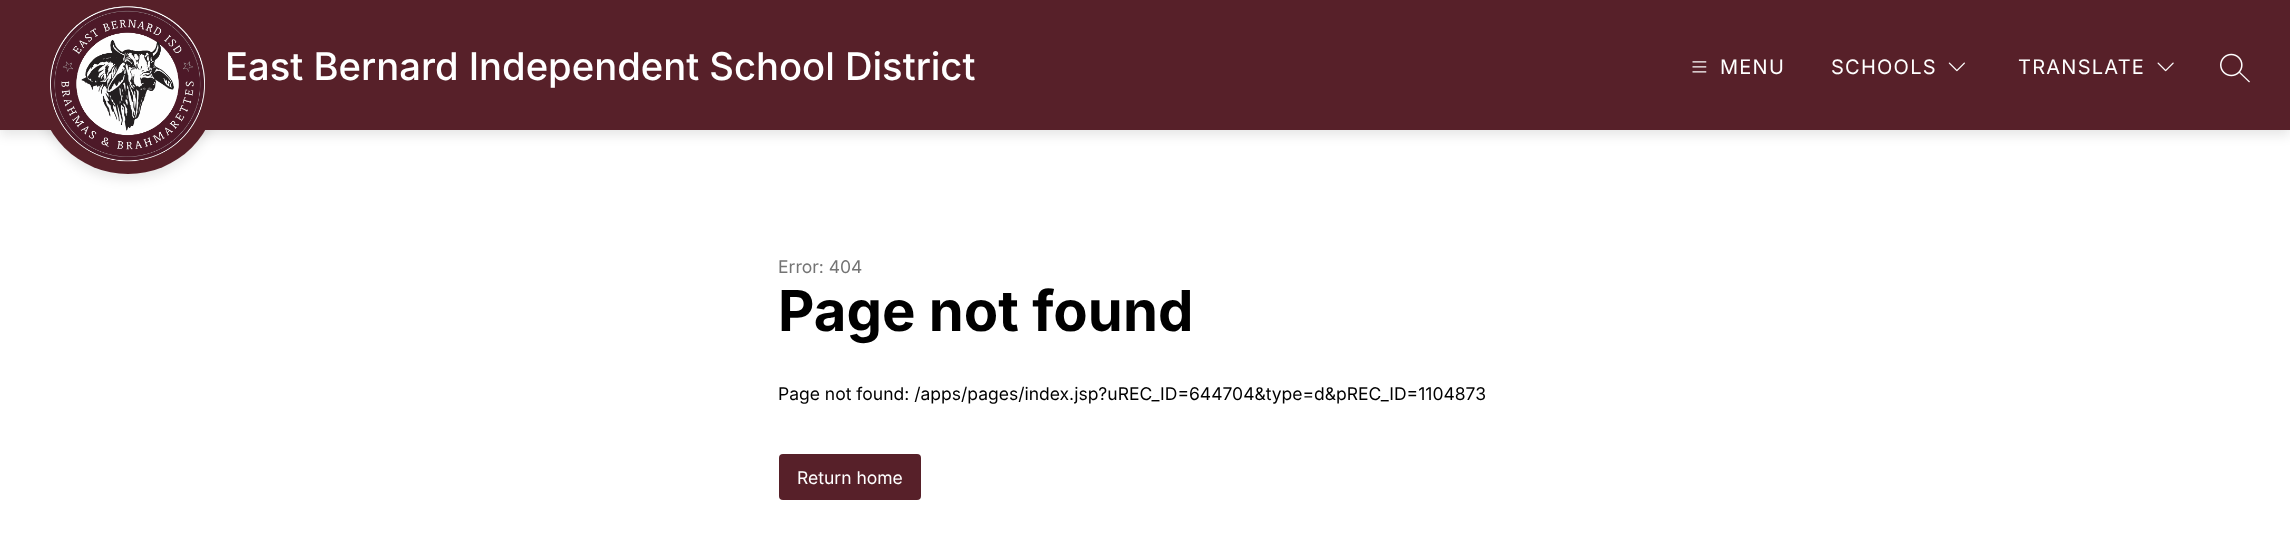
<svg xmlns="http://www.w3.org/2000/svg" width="2290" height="549">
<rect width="100%" height="100%" fill="#fff"/>
<rect y="5" width="2290" height="130" fill="#0000001a" filter="blur(6px)"/>
<rect x="38" y="-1" width="180" height="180" rx="90" fill="#0000001a" filter="blur(6px)"/>
<circle cx="128" cy="84" r="90" fill="#572029"/>
<rect width="2290" height="130" fill="#572029"/>
<image x="50" y="6" width="155" height="156" href="media/1.png"/>
<text x="225" y="80" style="font-family:Inter;font-size:38.2px;font-weight:500;fill:#fff">East Bernard Independent School District</text>
<image x="1692" y="61" width="15" height="12" href="media/2.png"/>
<text x="1720" y="74" style="font-family:Inter;font-size:20px;letter-spacing:1.25px;fill:#fff">MENU</text>
<text x="1831" y="74" style="font-family:Inter;font-size:20px;letter-spacing:1.25px;fill:#fff">SCHOOLS</text>
<image x="1948" y="62" width="17" height="10" href="media/3.png"/>
<text x="2018" y="74" style="font-family:Inter;font-size:20px;letter-spacing:1.25px;fill:#fff">TRANSLATE</text>
<image x="2157" y="62" width="17" height="10" href="media/4.png"/>
<image x="2220" y="53" width="30" height="30" href="media/5.png"/>
<text x="778" y="273" style="font-family:Inter;font-size:17.5px;fill:#747474">Error: 404</text>
<text x="778" y="331" style="font-family:Inter;font-size:56.25px;font-weight:bold;fill:#000">Page not found</text>
<text x="778" y="400" style="font-family:Inter;font-size:17.5px;fill:#000">Page not found: /apps/pages/index.jsp?uREC_ID=644704&amp;type=d&amp;pREC_ID=1104873</text>
<rect x="779" y="454" width="142" height="46" rx="4" fill="#572029"/>
<text x="797" y="484" style="font-family:Inter;font-size:17.5px;fill:#fff">Return home</text>
</svg>
